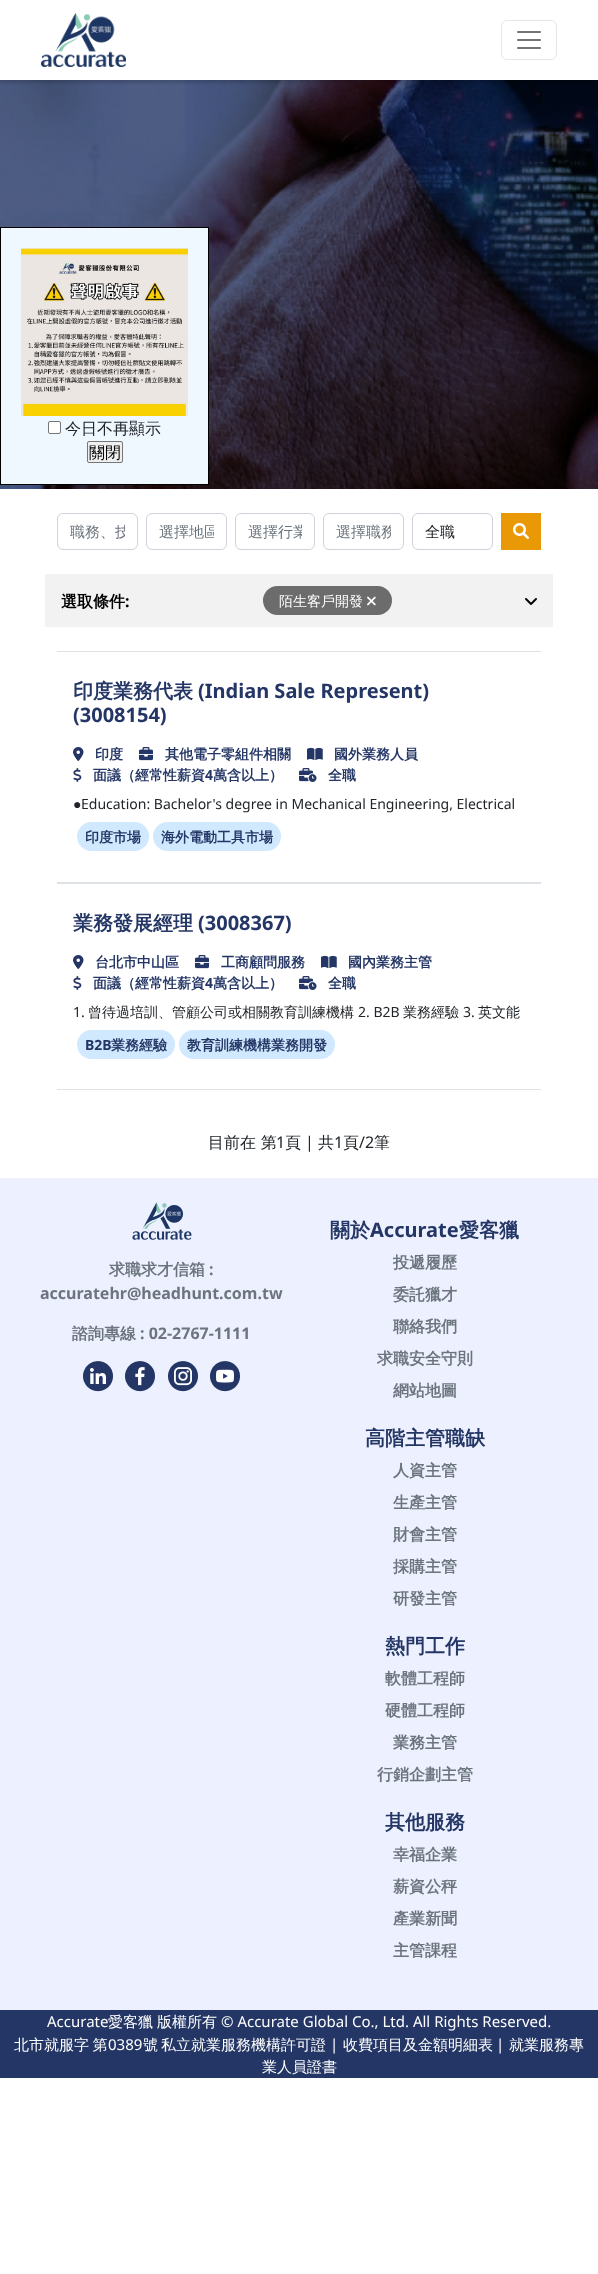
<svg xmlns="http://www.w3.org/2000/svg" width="598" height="2274">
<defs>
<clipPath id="clip1"><rect x="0" y="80" width="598" height="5"/></clipPath>
<clipPath id="clip2"><rect x="70" y="521" width="55" height="22"/></clipPath>
<clipPath id="clip3"><rect x="159" y="521" width="55" height="22"/></clipPath>
<clipPath id="clip4"><rect x="248" y="521" width="54" height="22"/></clipPath>
<clipPath id="clip5"><rect x="336" y="521" width="55" height="22"/></clipPath>
</defs>
<rect width="100%" height="100%" fill="#fff"/>
<image x="0" y="80" width="598" height="409" href="media/4.png"/>
<g clip-path="url(#clip1)">
<rect y="2" width="598" height="80" fill="#00000033" filter="blur(2px)"/>
</g>
<image x="41" y="13" width="85" height="54" href="media/1.png"/>
<rect x="501.5" y="20.5" width="55" height="39" rx="5.5" fill="none" stroke="#e6e6e6"/>
<image x="517" y="31" width="24" height="18" href="media/2.png"/>
<rect x="0.5" y="227.5" width="208" height="257" fill="#f0f8ff" stroke="#000"/>
<image x="21" y="248" width="167" height="168" href="media/3.png"/>
<rect x="48.5" y="421.5" width="12" height="12" rx="1.5" fill="#fff" stroke="#767676"/>
<text x="65" y="434" style="font-family:WenQuanYi Zen Hei;font-size:16px;font-weight:500;fill:#212529">今日不再顯示</text>
<rect x="87.5" y="441.5" width="35" height="21" rx="1.5" fill="#efefef" stroke="#767676"/>
<text x="89" y="458" style="font-family:WenQuanYi Zen Hei;font-size:16px;font-weight:500;fill:#000">關閉</text>
<rect x="57.5" y="513.5" width="80" height="36" rx="5.5" fill="none" stroke="#ced4da"/>
<g clip-path="url(#clip2)">
<text x="70" y="537" style="font-family:WenQuanYi Zen Hei;font-size:15px;font-weight:500;fill:#6c757d">職務、技</text>
</g>
<rect x="146.5" y="513.5" width="80" height="36" rx="5.5" fill="none" stroke="#ced4da"/>
<g clip-path="url(#clip3)">
<text x="159" y="537" style="font-family:WenQuanYi Zen Hei;font-size:15px;font-weight:500;fill:#6c757d">選擇地區</text>
</g>
<rect x="235.5" y="513.5" width="79" height="36" rx="5.5" fill="none" stroke="#ced4da"/>
<g clip-path="url(#clip4)">
<text x="248" y="537" style="font-family:WenQuanYi Zen Hei;font-size:15px;font-weight:500;fill:#6c757d">選擇行業</text>
</g>
<rect x="323.5" y="513.5" width="80" height="36" rx="5.5" fill="none" stroke="#ced4da"/>
<g clip-path="url(#clip5)">
<text x="336" y="537" style="font-family:WenQuanYi Zen Hei;font-size:15px;font-weight:500;fill:#6c757d">選擇職務</text>
</g>
<rect x="412.5" y="513.5" width="80" height="36" rx="5.5" fill="none" stroke="#ced4da"/>
<text x="425" y="537" style="font-family:WenQuanYi Zen Hei;font-size:15px;font-weight:500;fill:#212529">全職</text>
<rect x="501" y="513" width="40" height="37" fill="#e99905"/>
<image x="513" y="523" width="16" height="16" href="media/5.png"/>
<rect x="45" y="574" width="508" height="53" fill="#f2f2f2"/>
<text x="61" y="607" style="font-family:WenQuanYi Zen Hei;font-size:16px;font-weight:bold;fill:#000">選取條件</text>
<text x="125" y="607" style="font-family:Noto Sans;font-size:16px;font-weight:bold;fill:#000">:</text>
<rect x="263" y="586" width="129" height="29" rx="14.5" fill="#6c6c6c"/>
<text x="279" y="606" style="font-family:WenQuanYi Zen Hei;font-size:14px;font-weight:500;fill:#fff">陌生客戶開發</text>
<image x="367" y="596" width="9" height="10" href="media/6.png"/>
<image x="525" y="598" width="12" height="7" href="media/7.png"/>
<rect x="57" y="651" width="484" height="1" fill="#dee2e6"/>
<rect x="57" y="882" width="484" height="2" fill="#dee2e6"/>
<text x="73" y="698" style="font-family:WenQuanYi Zen Hei;font-size:20px;font-weight:bold;fill:#243665">印度業務代表</text>
<text x="198" y="698" style="font-family:Noto Sans;font-size:20px;font-weight:bold;fill:#243665">(Indian Sale Represent)</text>
<text x="73" y="722" style="font-family:Noto Sans;font-size:20px;font-weight:bold;fill:#243665">(3008154)</text>
<image x="73" y="747" width="11" height="14" href="media/8.png"/>
<text x="95" y="759" style="font-family:WenQuanYi Zen Hei;font-size:14px;font-weight:bold;fill:#243665">印度</text>
<image x="139" y="747" width="14" height="14" href="media/9.png"/>
<text x="165" y="759" style="font-family:WenQuanYi Zen Hei;font-size:14px;font-weight:bold;fill:#243665">其他電子零組件相關</text>
<image x="307" y="747" width="16" height="14" href="media/10.png"/>
<text x="334" y="759" style="font-family:WenQuanYi Zen Hei;font-size:14px;font-weight:bold;fill:#243665">國外業務人員</text>
<image x="73" y="768" width="9" height="14" href="media/11.png"/>
<text x="93" y="780" style="font-family:WenQuanYi Zen Hei;font-size:14px;font-weight:bold;fill:#243665">面議（經常性薪資</text>
<text x="205" y="780" style="font-family:Noto Sans;font-size:14px;font-weight:bold;fill:#243665">4</text>
<text x="213" y="780" style="font-family:WenQuanYi Zen Hei;font-size:14px;font-weight:bold;fill:#243665">萬含以上）</text>
<image x="299" y="768" width="18" height="14" href="media/12.png"/>
<text x="328" y="780" style="font-family:WenQuanYi Zen Hei;font-size:14px;font-weight:bold;fill:#243665">全職</text>
<text x="73" y="809" style="font-family:Liberation Sans;font-size:14px;fill:#212529">●</text>
<text x="81" y="809" style="font-family:Noto Sans;font-size:14px;fill:#212529">Education: Bachelor's degree in Mechanical Engineering, Electrical</text>
<rect x="77" y="822" width="72" height="29" rx="14.5" fill="#d0e9ff"/>
<text x="85" y="842" style="font-family:WenQuanYi Zen Hei;font-size:14px;font-weight:bold;fill:#243665">印度市場</text>
<rect x="153" y="822" width="128" height="29" rx="14.5" fill="#d0e9ff"/>
<text x="161" y="842" style="font-family:WenQuanYi Zen Hei;font-size:14px;font-weight:bold;fill:#243665">海外電動工具市場</text>
<rect x="57" y="1089" width="484" height="1" fill="#dee2e6"/>
<text x="73" y="930" style="font-family:WenQuanYi Zen Hei;font-size:20px;font-weight:bold;fill:#243665">業務發展經理</text>
<text x="198" y="930" style="font-family:Noto Sans;font-size:20px;font-weight:bold;fill:#243665">(3008367)</text>
<image x="73" y="955" width="11" height="14" href="media/8.png"/>
<text x="95" y="967" style="font-family:WenQuanYi Zen Hei;font-size:14px;font-weight:bold;fill:#243665">台北市中山區</text>
<image x="195" y="955" width="14" height="14" href="media/9.png"/>
<text x="221" y="967" style="font-family:WenQuanYi Zen Hei;font-size:14px;font-weight:bold;fill:#243665">工商顧問服務</text>
<image x="321" y="955" width="16" height="14" href="media/10.png"/>
<text x="348" y="967" style="font-family:WenQuanYi Zen Hei;font-size:14px;font-weight:bold;fill:#243665">國內業務主管</text>
<image x="73" y="976" width="9" height="14" href="media/11.png"/>
<text x="93" y="988" style="font-family:WenQuanYi Zen Hei;font-size:14px;font-weight:bold;fill:#243665">面議（經常性薪資</text>
<text x="205" y="988" style="font-family:Noto Sans;font-size:14px;font-weight:bold;fill:#243665">4</text>
<text x="213" y="988" style="font-family:WenQuanYi Zen Hei;font-size:14px;font-weight:bold;fill:#243665">萬含以上）</text>
<image x="299" y="976" width="18" height="14" href="media/12.png"/>
<text x="328" y="988" style="font-family:WenQuanYi Zen Hei;font-size:14px;font-weight:bold;fill:#243665">全職</text>
<text x="73" y="1017" style="font-family:Noto Sans;font-size:14px;fill:#212529">1.</text>
<text x="88" y="1017" style="font-family:WenQuanYi Zen Hei;font-size:14px;font-weight:500;fill:#212529">曾待過培訓、管顧公司或相關教育訓練機構</text>
<text x="358" y="1017" style="font-family:Noto Sans;font-size:14px;fill:#212529">2. B2B</text>
<text x="403" y="1017" style="font-family:WenQuanYi Zen Hei;font-size:14px;font-weight:500;fill:#212529">業務經驗</text>
<text x="463" y="1017" style="font-family:Noto Sans;font-size:14px;fill:#212529">3.</text>
<text x="478" y="1017" style="font-family:WenQuanYi Zen Hei;font-size:14px;font-weight:500;fill:#212529">英文能</text>
<rect x="77" y="1030" width="98" height="29" rx="14.5" fill="#d0e9ff"/>
<text x="85" y="1050" style="font-family:Noto Sans;font-size:14px;font-weight:bold;fill:#243665">B2B</text>
<text x="111" y="1050" style="font-family:WenQuanYi Zen Hei;font-size:14px;font-weight:bold;fill:#243665">業務經驗</text>
<rect x="179" y="1030" width="156" height="29" rx="14.5" fill="#d0e9ff"/>
<text x="187" y="1050" style="font-family:WenQuanYi Zen Hei;font-size:14px;font-weight:bold;fill:#243665">教育訓練機構業務開發</text>
<text x="208" y="1148" style="font-family:WenQuanYi Zen Hei;font-size:16px;font-weight:500;fill:#212529">目前在 第</text>
<text x="276" y="1148" style="font-family:Noto Sans;font-size:16px;fill:#212529">1</text>
<text x="285" y="1148" style="font-family:WenQuanYi Zen Hei;font-size:16px;font-weight:500;fill:#212529">頁</text>
<text x="305" y="1148" style="font-family:Noto Sans;font-size:16px;fill:#212529">|</text>
<text x="318" y="1148" style="font-family:WenQuanYi Zen Hei;font-size:16px;font-weight:500;fill:#212529">共</text>
<text x="334" y="1148" style="font-family:Noto Sans;font-size:16px;fill:#212529">1</text>
<text x="343" y="1148" style="font-family:WenQuanYi Zen Hei;font-size:16px;font-weight:500;fill:#212529">頁</text>
<text x="359" y="1148" style="font-family:Noto Sans;font-size:16px;fill:#212529">/2</text>
<text x="374" y="1148" style="font-family:WenQuanYi Zen Hei;font-size:16px;font-weight:500;fill:#212529">筆</text>
<rect y="1178" width="598" height="832" fill="#edf1ff"/>
<image x="132" y="1202" width="60" height="38" href="media/13.png"/>
<text x="109" y="1275" style="font-family:WenQuanYi Zen Hei;font-size:16px;font-weight:bold;fill:#6c757d">求職求才信箱</text>
<text x="209" y="1275" style="font-family:Noto Sans;font-size:16px;font-weight:bold;fill:#6c757d">:</text>
<text x="40" y="1299" style="font-family:Noto Sans;font-size:16px;font-weight:bold;fill:#6c757d">accuratehr@headhunt.com.tw</text>
<text x="72" y="1339" style="font-family:WenQuanYi Zen Hei;font-size:16px;font-weight:bold;fill:#6c757d">諮詢專線</text>
<text x="140" y="1339" style="font-family:Noto Sans;font-size:16px;font-weight:bold;fill:#6c757d">: 02-2767-1111</text>
<image x="83" y="1361" width="30" height="31" href="media/14.png"/>
<image x="125" y="1361" width="30" height="31" href="media/15.png"/>
<image x="168" y="1361" width="30" height="31" href="media/16.png"/>
<image x="210" y="1361" width="30" height="31" href="media/17.png"/>
<text x="330" y="1237" style="font-family:WenQuanYi Zen Hei;font-size:20px;font-weight:bold;fill:#243665">關於</text>
<text x="370" y="1237" style="font-family:Noto Sans;font-size:20px;font-weight:bold;fill:#243665">Accurate</text>
<text x="459" y="1237" style="font-family:WenQuanYi Zen Hei;font-size:20px;font-weight:bold;fill:#243665">愛客獵</text>
<text x="393" y="1268" style="font-family:WenQuanYi Zen Hei;font-size:16px;font-weight:bold;fill:#6c757d">投遞履歷</text>
<text x="393" y="1300" style="font-family:WenQuanYi Zen Hei;font-size:16px;font-weight:bold;fill:#6c757d">委託獵才</text>
<text x="393" y="1332" style="font-family:WenQuanYi Zen Hei;font-size:16px;font-weight:bold;fill:#6c757d">聯絡我們</text>
<text x="377" y="1364" style="font-family:WenQuanYi Zen Hei;font-size:16px;font-weight:bold;fill:#6c757d">求職安全守則</text>
<text x="393" y="1396" style="font-family:WenQuanYi Zen Hei;font-size:16px;font-weight:bold;fill:#6c757d">網站地圖</text>
<text x="365" y="1445" style="font-family:WenQuanYi Zen Hei;font-size:20px;font-weight:bold;fill:#243665">高階主管職缺</text>
<text x="393" y="1476" style="font-family:WenQuanYi Zen Hei;font-size:16px;font-weight:bold;fill:#6c757d">人資主管</text>
<text x="393" y="1508" style="font-family:WenQuanYi Zen Hei;font-size:16px;font-weight:bold;fill:#6c757d">生產主管</text>
<text x="393" y="1540" style="font-family:WenQuanYi Zen Hei;font-size:16px;font-weight:bold;fill:#6c757d">財會主管</text>
<text x="393" y="1572" style="font-family:WenQuanYi Zen Hei;font-size:16px;font-weight:bold;fill:#6c757d">採購主管</text>
<text x="393" y="1604" style="font-family:WenQuanYi Zen Hei;font-size:16px;font-weight:bold;fill:#6c757d">研發主管</text>
<text x="385" y="1653" style="font-family:WenQuanYi Zen Hei;font-size:20px;font-weight:bold;fill:#243665">熱門工作</text>
<text x="385" y="1684" style="font-family:WenQuanYi Zen Hei;font-size:16px;font-weight:bold;fill:#6c757d">軟體工程師</text>
<text x="385" y="1716" style="font-family:WenQuanYi Zen Hei;font-size:16px;font-weight:bold;fill:#6c757d">硬體工程師</text>
<text x="393" y="1748" style="font-family:WenQuanYi Zen Hei;font-size:16px;font-weight:bold;fill:#6c757d">業務主管</text>
<text x="377" y="1780" style="font-family:WenQuanYi Zen Hei;font-size:16px;font-weight:bold;fill:#6c757d">行銷企劃主管</text>
<text x="385" y="1829" style="font-family:WenQuanYi Zen Hei;font-size:20px;font-weight:bold;fill:#243665">其他服務</text>
<text x="393" y="1860" style="font-family:WenQuanYi Zen Hei;font-size:16px;font-weight:bold;fill:#6c757d">幸福企業</text>
<text x="393" y="1892" style="font-family:WenQuanYi Zen Hei;font-size:16px;font-weight:bold;fill:#6c757d">薪資公秤</text>
<text x="393" y="1924" style="font-family:WenQuanYi Zen Hei;font-size:16px;font-weight:bold;fill:#6c757d">產業新聞</text>
<text x="393" y="1956" style="font-family:WenQuanYi Zen Hei;font-size:16px;font-weight:bold;fill:#6c757d">主管課程</text>
<rect y="2010" width="598" height="68" fill="#243665"/>
<text x="47" y="2027" style="font-family:Noto Sans;font-size:15px;fill:#fff">Accurate</text>
<text x="108" y="2027" style="font-family:WenQuanYi Zen Hei;font-size:15px;font-weight:500;fill:#fff">愛客獵</text>
<text x="157" y="2027" style="font-family:WenQuanYi Zen Hei;font-size:15px;font-weight:500;fill:#fff">版權所有</text>
<text x="221" y="2027" style="font-family:Noto Sans;font-size:15px;fill:#fff">© Accurate Global Co., Ltd. All Rights Reserved.</text>
<text x="14" y="2050" word-spacing="-1" style="font-family:WenQuanYi Zen Hei;font-size:15px;font-weight:500;fill:#fff">北市就服字 第</text>
<text x="108" y="2050" style="font-family:Noto Sans;font-size:15px;fill:#fff">0389</text>
<text x="143" y="2050" style="font-family:WenQuanYi Zen Hei;font-size:15px;font-weight:500;fill:#fff">號</text>
<text x="161" y="2050" style="font-family:WenQuanYi Zen Hei;font-size:15px;font-weight:500;fill:#fff">私立就業服務機構許可證</text>
<text x="330" y="2050" style="font-family:Noto Sans;font-size:15px;fill:#fff">|</text>
<text x="343" y="2050" style="font-family:WenQuanYi Zen Hei;font-size:15px;font-weight:500;fill:#fff">收費項目及金額明細表</text>
<text x="496" y="2050" style="font-family:Noto Sans;font-size:15px;fill:#fff">|</text>
<text x="509" y="2050" style="font-family:WenQuanYi Zen Hei;font-size:15px;font-weight:500;fill:#fff">就業服務專</text>
<text x="262" y="2072" style="font-family:WenQuanYi Zen Hei;font-size:15px;font-weight:500;fill:#fff">業人員證書</text>
</svg>
